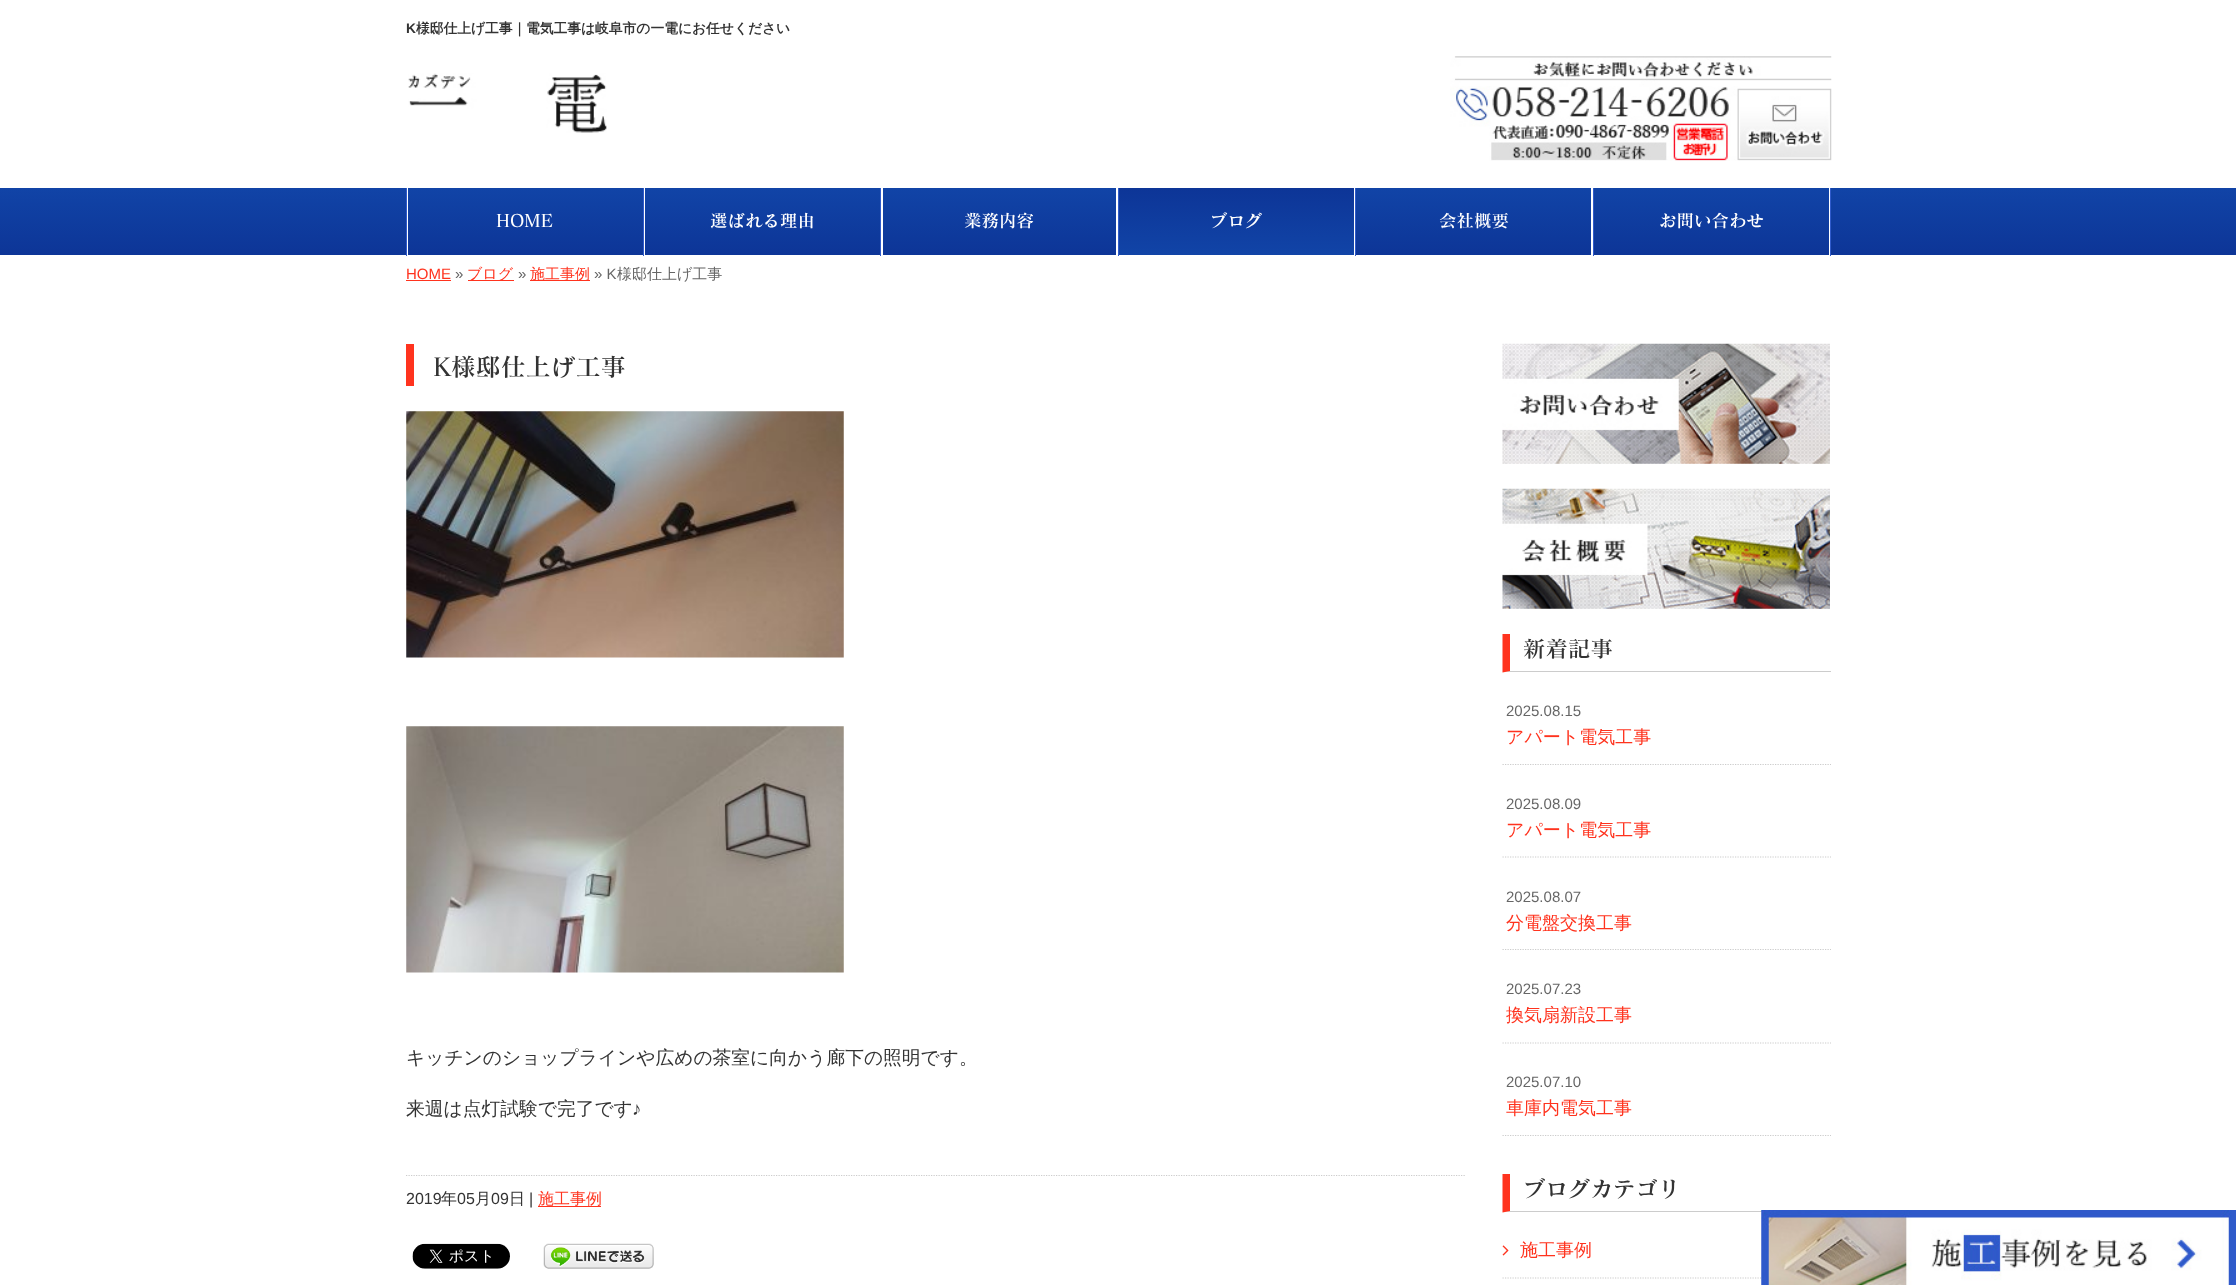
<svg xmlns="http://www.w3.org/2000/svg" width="2236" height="1285">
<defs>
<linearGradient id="g1" gradientUnits="userSpaceOnUse" x1="1118" y1="187" x2="1118" y2="255"><stop offset="0" stop-color="#1144a7"/><stop offset="1" stop-color="#0d3597"/></linearGradient>
<linearGradient id="g2" gradientUnits="userSpaceOnUse" x1="525" y1="188" x2="525" y2="255"><stop offset="0" stop-color="#1144a7"/><stop offset="1" stop-color="#0d3597"/></linearGradient>
<linearGradient id="g3" gradientUnits="userSpaceOnUse" x1="763" y1="188" x2="763" y2="255"><stop offset="0" stop-color="#1144a7"/><stop offset="1" stop-color="#0d3597"/></linearGradient>
<linearGradient id="g4" gradientUnits="userSpaceOnUse" x1="999" y1="188" x2="999" y2="255"><stop offset="0" stop-color="#1144a7"/><stop offset="1" stop-color="#0d3597"/></linearGradient>
<linearGradient id="g5" gradientUnits="userSpaceOnUse" x1="1236" y1="188" x2="1236" y2="255"><stop offset="0" stop-color="#0d3597"/><stop offset="1" stop-color="#1144a7"/></linearGradient>
<linearGradient id="g6" gradientUnits="userSpaceOnUse" x1="1474" y1="188" x2="1474" y2="255"><stop offset="0" stop-color="#1144a7"/><stop offset="1" stop-color="#0d3597"/></linearGradient>
<linearGradient id="g7" gradientUnits="userSpaceOnUse" x1="1711" y1="188" x2="1711" y2="255"><stop offset="0" stop-color="#1144a7"/><stop offset="1" stop-color="#0d3597"/></linearGradient>
</defs>
<rect width="100%" height="100%" fill="#fff"/>
<text x="406" y="33" style="font-family:Liberation Sans;font-size:13.75px;font-weight:bold;fill:#333">K</text>
<text x="416" y="33" style="font-family:WenQuanYi Zen Hei;font-size:13.75px;font-weight:bold;fill:#333">様邸仕上げ工事｜電気工事は岐阜市の一電にお任せください</text>
<image x="408" y="73" width="199" height="60" href="media/1.png"/>
<image x="1450" y="56" width="382" height="105" href="media/2.png"/>
<rect y="188" width="2236" height="67" fill="url(#g1)"/>
<rect x="407" y="188" width="1423" height="67" fill="#fff"/>
<rect x="408" y="188" width="235" height="67" fill="url(#g2)"/>
<rect x="406" y="188" width="1" height="68" fill="#2f5aca"/>
<text x="496" y="227" style="font-family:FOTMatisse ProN;font-size:17.5px;font-weight:600;fill:#fff">HOME</text>
<rect x="643" y="188" width="1" height="68" fill="#2f5aca"/>
<rect x="645" y="188" width="235" height="67" fill="url(#g3)"/>
<text x="710" y="227" style="font-family:FOTMatisse ProN;font-size:17.5px;font-weight:600;fill:#fff">選ばれる理由</text>
<rect x="880" y="188" width="1" height="68" fill="#2f5aca"/>
<rect x="883" y="188" width="233" height="67" fill="url(#g4)"/>
<text x="964" y="227" style="font-family:FOTMatisse ProN;font-size:17.5px;font-weight:600;fill:#fff">業務内容</text>
<rect x="1118" y="188" width="1" height="68" fill="#2f5aca"/>
<rect x="1119" y="188" width="235" height="67" fill="url(#g5)"/>
<text x="1210" y="227" style="font-family:FOTMatisse ProN;font-size:17.5px;font-weight:600;fill:#fff">ブログ</text>
<rect x="1356" y="188" width="235" height="67" fill="url(#g6)"/>
<rect x="1355" y="188" width="1" height="68" fill="#2f5aca"/>
<text x="1439" y="227" style="font-family:FOTMatisse ProN;font-size:17.5px;font-weight:600;fill:#fff">会社概要</text>
<rect x="1594" y="188" width="235" height="67" fill="url(#g7)"/>
<rect x="1830" y="188" width="1" height="68" fill="#2f5aca"/>
<rect x="1593" y="188" width="1" height="68" fill="#2f5aca"/>
<text x="1659" y="227" style="font-family:FOTMatisse ProN;font-size:17.5px;font-weight:600;fill:#fff">お問い合わせ</text>
<text x="406" y="279" style="font-family:Liberation Sans;font-size:15px;fill:#ff331e">HOME</text>
<rect x="406" y="280" width="45" height="1" fill="#ff331e"/>
<text x="455" y="279" style="font-family:Liberation Sans;font-size:15px;fill:#666">»</text>
<rect x="468" y="280" width="46" height="1" fill="#ff331e"/>
<text x="467" y="279" style="font-family:WenQuanYi Zen Hei;font-size:15px;font-weight:500;fill:#ff331e">ブログ</text>
<text x="518" y="279" style="font-family:Liberation Sans;font-size:15px;fill:#666">»</text>
<rect x="530" y="280" width="60" height="1" fill="#ff331e"/>
<text x="530" y="279" style="font-family:WenQuanYi Zen Hei;font-size:15px;font-weight:500;fill:#ff331e">施工事例</text>
<text x="594" y="279" style="font-family:Liberation Sans;font-size:15px;fill:#666">» K</text>
<text x="617" y="279" style="font-family:WenQuanYi Zen Hei;font-size:15px;font-weight:500;fill:#666">様邸仕上げ工事</text>
<rect x="406" y="344" width="8" height="42" fill="#ff331e"/>
<text x="433" y="376" style="font-family:FOTMatisse ProN;font-size:25px;font-weight:600;fill:#333">K様邸仕上げ工事</text>
<image x="406" y="411" width="438" height="247" href="media/3.png"/>
<image x="406" y="726" width="438" height="247" href="media/4.png"/>
<text x="406" y="1064" style="font-family:WenQuanYi Zen Hei;font-size:18.75px;font-weight:500;fill:#333">キッチンのショップラインや広めの茶室に向かう廊下の照明です。</text>
<text x="406" y="1115" style="font-family:WenQuanYi Zen Hei;font-size:18.75px;font-weight:500;fill:#333">来週は点灯試験で完了です</text>
<text x="632" y="1115" style="font-family:Liberation Sans;font-size:18.75px;fill:#333">♪</text>
<path d="M406 1175.5h1059" fill="none" stroke="#ccc" stroke-width="1.2" stroke-dasharray="1.25 1.25"/>
<text x="406" y="1204" style="font-family:Liberation Sans;font-size:16px;fill:#333">2019</text>
<text x="441" y="1204" style="font-family:WenQuanYi Zen Hei;font-size:16px;font-weight:500;fill:#333">年</text>
<text x="457" y="1204" style="font-family:Liberation Sans;font-size:16px;fill:#333">05</text>
<text x="475" y="1204" style="font-family:WenQuanYi Zen Hei;font-size:16px;font-weight:500;fill:#333">月</text>
<text x="491" y="1204" style="font-family:Liberation Sans;font-size:16px;fill:#333">09</text>
<text x="509" y="1204" style="font-family:WenQuanYi Zen Hei;font-size:16px;font-weight:500;fill:#333">日</text>
<text x="529" y="1204" style="font-family:Liberation Sans;font-size:16px;fill:#333">|</text>
<rect x="538" y="1206" width="63" height="1" fill="#ff331e"/>
<text x="538" y="1204" style="font-family:WenQuanYi Zen Hei;font-size:16px;font-weight:500;fill:#ff331e">施工事例</text>
<image x="412" y="1243" width="98" height="26" href="media/5.png"/>
<image x="543" y="1243" width="111" height="26" href="media/6.png"/>
<image x="1502" y="343" width="328" height="121" href="media/7.png"/>
<image x="1502" y="488" width="328" height="121" href="media/8.png"/>
<path d="M1831 672h-329l8-1h321z" fill="#ccc"/>
<path d="M1502.5 672.5v-38.5h7.5v37z" fill="#ff331e"/>
<text x="1523" y="657" style="font-family:FOTMatisse ProN;font-size:22.5px;font-weight:600;fill:#333">新着記事</text>
<path d="M1502.5 764.5h328.5" fill="none" stroke="#ccc" stroke-width="1.2" stroke-dasharray="1.25 1.25"/>
<text x="1506" y="716" style="font-family:Liberation Sans;font-size:15px;fill:#666">2025.08.15</text>
<text x="1506" y="743" style="font-family:WenQuanYi Zen Hei;font-size:18px;font-weight:500;fill:#ff331e">アパート電気工事</text>
<path d="M1502.5 857h328.5" fill="none" stroke="#ccc" stroke-width="1.2" stroke-dasharray="1.25 1.25"/>
<text x="1506" y="809" style="font-family:Liberation Sans;font-size:15px;fill:#666">2025.08.09</text>
<text x="1506" y="836" style="font-family:WenQuanYi Zen Hei;font-size:18px;font-weight:500;fill:#ff331e">アパート電気工事</text>
<path d="M1502.5 949.5h328.5" fill="none" stroke="#ccc" stroke-width="1.2" stroke-dasharray="1.25 1.25"/>
<text x="1506" y="902" style="font-family:Liberation Sans;font-size:15px;fill:#666">2025.08.07</text>
<text x="1506" y="929" style="font-family:WenQuanYi Zen Hei;font-size:18px;font-weight:500;fill:#ff331e">分電盤交換工事</text>
<path d="M1502.5 1043h328.5" fill="none" stroke="#ccc" stroke-width="1.2" stroke-dasharray="1.25 1.25"/>
<text x="1506" y="994" style="font-family:Liberation Sans;font-size:15px;fill:#666">2025.07.23</text>
<text x="1506" y="1021" style="font-family:WenQuanYi Zen Hei;font-size:18px;font-weight:500;fill:#ff331e">換気扇新設工事</text>
<path d="M1502.5 1135.5h328.5" fill="none" stroke="#ccc" stroke-width="1.2" stroke-dasharray="1.25 1.25"/>
<text x="1506" y="1087" style="font-family:Liberation Sans;font-size:15px;fill:#666">2025.07.10</text>
<text x="1506" y="1114" style="font-family:WenQuanYi Zen Hei;font-size:18px;font-weight:500;fill:#ff331e">車庫内電気工事</text>
<path d="M1831 1212h-329l8-1h321z" fill="#ccc"/>
<path d="M1502.5 1212.5v-38.5h7.5v37z" fill="#ff331e"/>
<text x="1523" y="1197" style="font-family:FOTMatisse ProN;font-size:22.5px;font-weight:600;fill:#333">ブログカテゴリ</text>
<path d="M1502.5 1278h328.5" fill="none" stroke="#ccc" stroke-width="1.2" stroke-dasharray="1.25 1.25"/>
<image x="1502" y="1245" width="7" height="11" href="media/9.png"/>
<text x="1520" y="1256" style="font-family:WenQuanYi Zen Hei;font-size:18px;font-weight:500;fill:#ff331e">施工事例</text>
<image x="1761" y="1210" width="475" height="75" href="media/10.png"/>
</svg>
